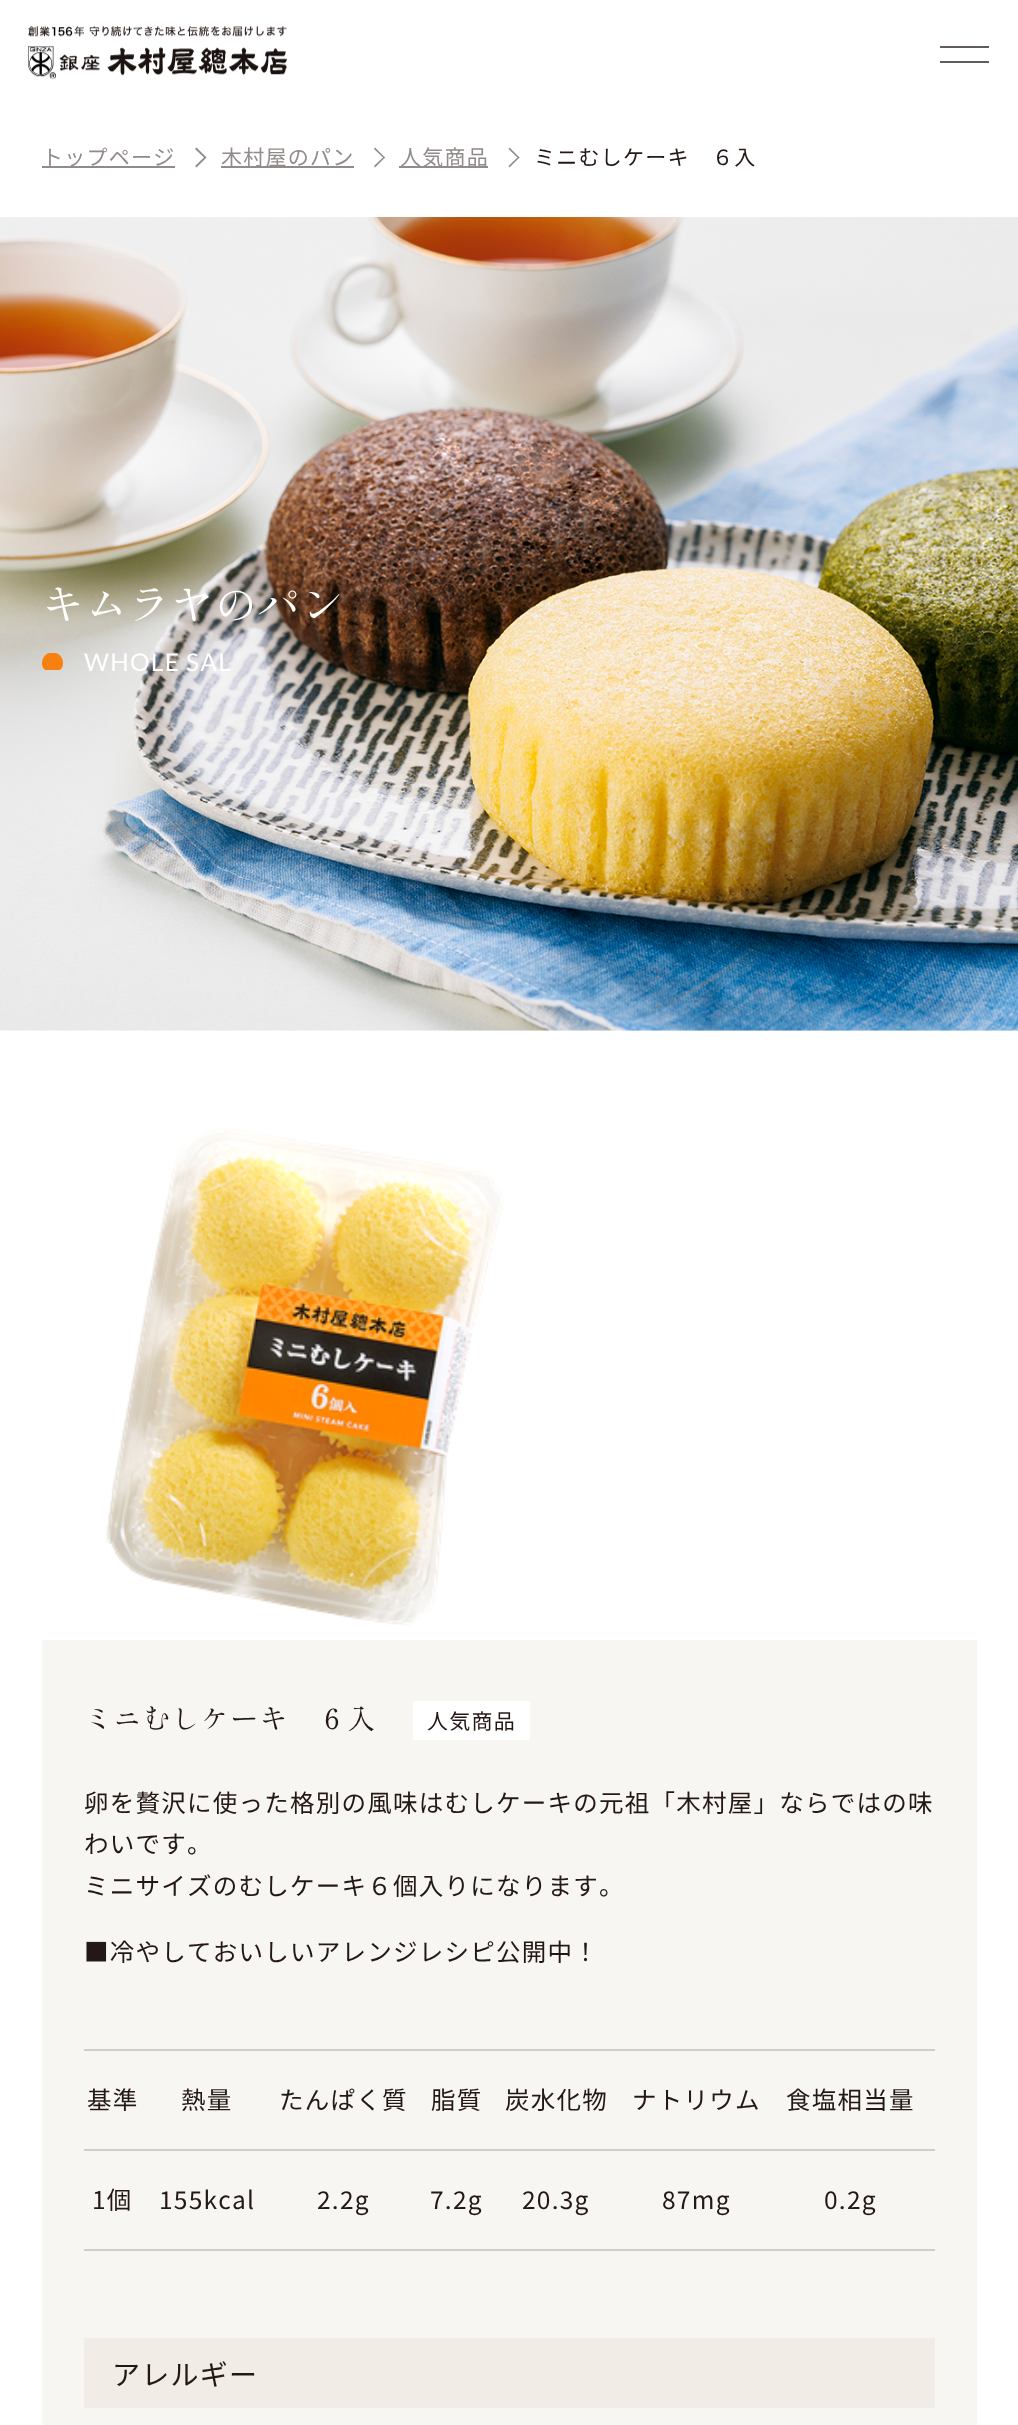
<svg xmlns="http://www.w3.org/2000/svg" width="1018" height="2425">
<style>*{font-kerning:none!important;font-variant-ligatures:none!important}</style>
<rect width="100%" height="100%" fill="#fff"/>
<image x="28" y="26" width="259" height="54" href="media/1.png"/>
<rect x="940" y="46" width="49" height="2" fill="#625c60"/>
<rect x="940" y="61" width="49" height="2" fill="#625c60"/>
<rect x="42" y="166" width="133" height="2" fill="#918b8a"/>
<text x="42" y="165" style="font-family:Noto Sans JP;font-size:21px;font-weight:100;letter-spacing:1.25px;fill:#918b8a">トップページ</text>
<path d="M196.5 147.5l10 10l-1.5 1l-10-9.5z" fill="#918b8a"/>
<path d="M205 156.5l1.5 1l-10 10l-1.5-1.5z" fill="#918b8a"/>
<rect x="221" y="166" width="133" height="2" fill="#918b8a"/>
<text x="221" y="165" style="font-family:Noto Sans JP;font-size:21px;font-weight:100;letter-spacing:1.25px;fill:#918b8a">木村屋のパン</text>
<path d="M375 147.5l10 10l-1 1l-10-9.5z" fill="#918b8a"/>
<path d="M384 156.5l1 1l-10 10l-1-1.5z" fill="#918b8a"/>
<rect x="399" y="166" width="89" height="2" fill="#918b8a"/>
<text x="400" y="165" style="font-family:Noto Sans JP;font-size:21px;font-weight:100;letter-spacing:1.25px;fill:#918b8a">人気商品</text>
<path d="M509.5 147.5l10 10l-1 1l-10-9.5z" fill="#918b8a"/>
<path d="M518.5 156.5l1 1l-10 10l-1-1.5z" fill="#918b8a"/>
<text x="534" y="165" style="font-family:Noto Sans JP;font-size:21px;font-weight:100;letter-spacing:1.25px;fill:#231815">ミニむしケーキ　６入</text>
<image x="0" y="217" width="1018" height="814" href="media/2.png"/>
<text x="42" y="620" style="font-family:Shippori Mincho;font-size:42px;letter-spacing:1.25px;fill:#fff">キムラヤのパン</text>
<image x="42" y="653" width="21" height="17" href="media/3.png"/>
<text x="84" y="671" style="font-family:Lato;font-size:24.5px;letter-spacing:1.25px;fill:#fff">WHOLE SAL</text>
<image x="106" y="1128" width="398" height="498" href="media/4.png"/>
<rect x="42" y="1640" width="935" height="785" fill="#f8f6f2"/>
<text x="84" y="1729" style="font-family:Shippori Mincho;font-size:28px;letter-spacing:1.25px;fill:#231815">ミニむしケーキ　６入</text>
<rect x="413" y="1701" width="117" height="39" fill="#fff"/>
<text x="427" y="1729" style="font-family:Noto Sans JP;font-size:21px;font-weight:100;letter-spacing:1.25px;fill:#231815">人気商品</text>
<text x="84" y="1812" style="font-family:Noto Sans JP;font-size:24.5px;font-weight:100;letter-spacing:1.25px;fill:#231815">卵を贅沢に使った格別の風味はむしケーキの元祖「木村屋」ならではの味</text>
<text x="84" y="1853" style="font-family:Noto Sans JP;font-size:24.5px;font-weight:100;letter-spacing:1.25px;fill:#231815">わいです。</text>
<text x="84" y="1895" style="font-family:Noto Sans JP;font-size:24.5px;font-weight:100;letter-spacing:1.25px;fill:#231815">ミニサイズのむしケーキ６個入りになります。</text>
<text x="84" y="1961" style="font-family:Noto Sans JP;font-size:24.5px;font-weight:100;letter-spacing:1.25px;fill:#231815">■冷やしておいしいアレンジレシピ公開中！</text>
<text x="87" y="2109" style="font-family:Noto Sans JP;font-size:24.5px;font-weight:100;letter-spacing:1.25px;fill:#231815">基準</text>
<text x="181" y="2109" style="font-family:Noto Sans JP;font-size:24.5px;font-weight:100;letter-spacing:1.25px;fill:#231815">熱量</text>
<text x="279" y="2109" style="font-family:Noto Sans JP;font-size:24.5px;font-weight:100;letter-spacing:1.25px;fill:#231815">たんぱく質</text>
<text x="431" y="2109" style="font-family:Noto Sans JP;font-size:24.5px;font-weight:100;letter-spacing:1.25px;fill:#231815">脂質</text>
<text x="505" y="2109" style="font-family:Noto Sans JP;font-size:24.5px;font-weight:100;letter-spacing:1.25px;fill:#231815">炭水化物</text>
<text x="632" y="2109" style="font-family:Noto Sans JP;font-size:24.5px;font-weight:100;letter-spacing:1.25px;fill:#231815">ナトリウム</text>
<rect x="84" y="2049" width="851" height="2" fill="#cfccce"/>
<text x="786" y="2109" style="font-family:Noto Sans JP;font-size:24.5px;font-weight:100;letter-spacing:1.25px;fill:#231815">食塩相当量</text>
<text x="92" y="2209" style="font-family:Noto Sans JP;font-size:24.5px;font-weight:100;letter-spacing:1.25px;fill:#231815">1個</text>
<text x="159" y="2209" style="font-family:Noto Sans JP;font-size:24.5px;font-weight:100;letter-spacing:1.25px;fill:#231815">155kcal</text>
<text x="317" y="2209" style="font-family:Noto Sans JP;font-size:24.5px;font-weight:100;letter-spacing:1.25px;fill:#231815">2.2g</text>
<text x="430" y="2209" style="font-family:Noto Sans JP;font-size:24.5px;font-weight:100;letter-spacing:1.25px;fill:#231815">7.2g</text>
<text x="522" y="2209" style="font-family:Noto Sans JP;font-size:24.5px;font-weight:100;letter-spacing:1.25px;fill:#231815">20.3g</text>
<text x="662" y="2209" style="font-family:Noto Sans JP;font-size:24.5px;font-weight:100;letter-spacing:1.25px;fill:#231815">87mg</text>
<rect x="84" y="2149" width="851" height="2" fill="#cfccce"/>
<rect x="84" y="2249" width="851" height="2" fill="#cfccce"/>
<text x="824" y="2209" style="font-family:Noto Sans JP;font-size:24.5px;font-weight:100;letter-spacing:1.25px;fill:#231815">0.2g</text>
<rect x="84" y="2338" width="851" height="70" fill="#f1ede6"/>
<text x="112" y="2385" style="font-family:Noto Sans JP;font-size:28px;font-weight:100;letter-spacing:1.25px;fill:#231815">アレルギー</text>
</svg>
